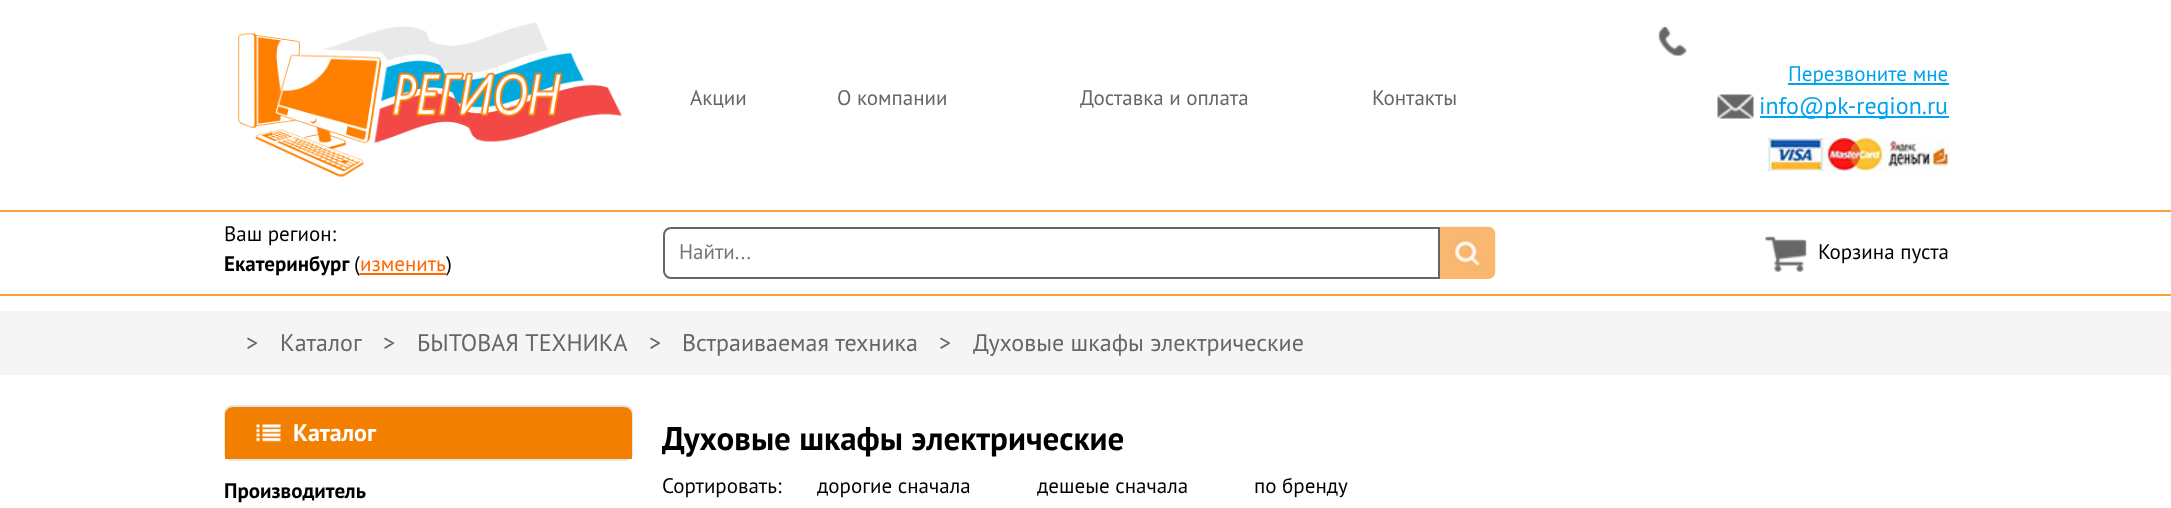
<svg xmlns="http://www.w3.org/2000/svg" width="2171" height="508">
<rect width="100%" height="100%" fill="#fff"/>
<image x="237" y="22" width="385" height="155" href="media/1.png"/>
<text x="690" y="105" style="font-family:PT Sans;font-size:21px;fill:#666">Акции</text>
<text x="837" y="105" style="font-family:PT Sans;font-size:21px;fill:#666">О компании</text>
<text x="1080" y="105" style="font-family:PT Sans;font-size:21px;fill:#666">Доставка и оплата</text>
<text x="1372" y="105" style="font-family:PT Sans;font-size:21px;fill:#666">Контакты</text>
<image x="1658" y="27" width="29" height="29" href="media/2.png"/>
<rect x="1788" y="83" width="161" height="2" fill="#00a3ec"/>
<text x="1788" y="81" style="font-family:PT Sans;font-size:21px;fill:#00a3ec">Перезвоните мне</text>
<image x="1717" y="94" width="37" height="25" href="media/3.png"/>
<rect x="1760" y="116" width="189" height="2" fill="#00a3ec"/>
<text x="1759" y="114" style="font-family:PT Sans;font-size:24px;fill:#00a3ec">info@pk-region.ru</text>
<image x="1768" y="138" width="181" height="33" href="media/4.png"/>
<rect y="210" width="2171" height="2" fill="#f99f3e"/>
<rect y="294" width="2171" height="2" fill="#f99f3e"/>
<text x="224" y="241" style="font-family:PT Sans;font-size:21px;fill:#000">Ваш регион:</text>
<text x="224" y="271" style="font-family:PT Sans;font-size:21px;font-weight:bold;fill:#000">Екатеринбург</text>
<text x="354" y="271" style="font-family:PT Sans;font-size:21px;fill:#000">(</text>
<text x="360" y="271" style="font-family:PT Sans;font-size:21px;fill:#f60">изменить</text>
<rect x="360" y="273" width="86" height="2" fill="#f60"/>
<text x="446" y="271" style="font-family:PT Sans;font-size:21px;fill:#000">)</text>
<path d="M671 228h768v50h-768c-4 0-7-3-7-7v-36c0-4 3-7 7-7z" fill="none" stroke="#666" stroke-width="2"/>
<text x="679" y="259" style="font-family:PT Sans;font-size:21px;fill:#757575">Найти...</text>
<image x="1440" y="226" width="56" height="53" href="media/5.png"/>
<image x="1765" y="236" width="42" height="36" href="media/6.png"/>
<text x="1818" y="259" style="font-family:PT Sans;font-size:21px;fill:#000">Корзина пуста</text>
<rect y="311" width="2171" height="64" fill="#f5f5f5"/>
<image x="223" y="343" width="2" height="2" href="media/7.png"/>
<text x="246" y="351" style="font-family:PT Sans;font-size:24px;fill:#666">&gt;</text>
<text x="280" y="351" style="font-family:PT Sans;font-size:24px;fill:#666">Каталог</text>
<text x="383" y="351" style="font-family:PT Sans;font-size:24px;fill:#666">&gt;</text>
<text x="417" y="351" style="font-family:PT Sans;font-size:24px;fill:#666">БЫТОВАЯ ТЕХНИКА</text>
<text x="649" y="351" style="font-family:PT Sans;font-size:24px;fill:#666">&gt;</text>
<text x="682" y="351" style="font-family:PT Sans;font-size:24px;fill:#666">Встраиваемая техника</text>
<text x="939" y="351" style="font-family:PT Sans;font-size:24px;fill:#666">&gt;</text>
<text x="973" y="351" style="font-family:PT Sans;font-size:24px;fill:#666">Духовые шкафы электрические</text>
<rect x="225" y="406" width="407" height="54" rx="7" fill="none" stroke="#e6e6e6" stroke-width="2"/>
<path d="M233 407h391c4.5 0 8 3.5 8 8v44h-407v-44c0-4.5 3.5-8 8-8z" fill="#f37f00"/>
<image x="256" y="424" width="25" height="18" href="media/8.png"/>
<text x="293" y="441" style="font-family:PT Sans;font-size:24px;font-weight:bold;fill:#fff">Каталог</text>
<text x="224" y="498" style="font-family:PT Sans;font-size:21px;font-weight:bold;fill:#000">Производитель</text>
<text x="662" y="450" style="font-family:PT Sans;font-size:33px;font-weight:bold;fill:#000">Духовые шкафы электрические</text>
<text x="662" y="493" style="font-family:PT Sans;font-size:21px;fill:#000">Сортировать:</text>
<text x="817" y="493" style="font-family:PT Sans;font-size:21px;fill:#000">дорогие сначала</text>
<text x="1037" y="493" style="font-family:PT Sans;font-size:21px;fill:#000">дешеые сначала</text>
<text x="1254" y="493" style="font-family:PT Sans;font-size:21px;fill:#000">по бренду</text>
</svg>
